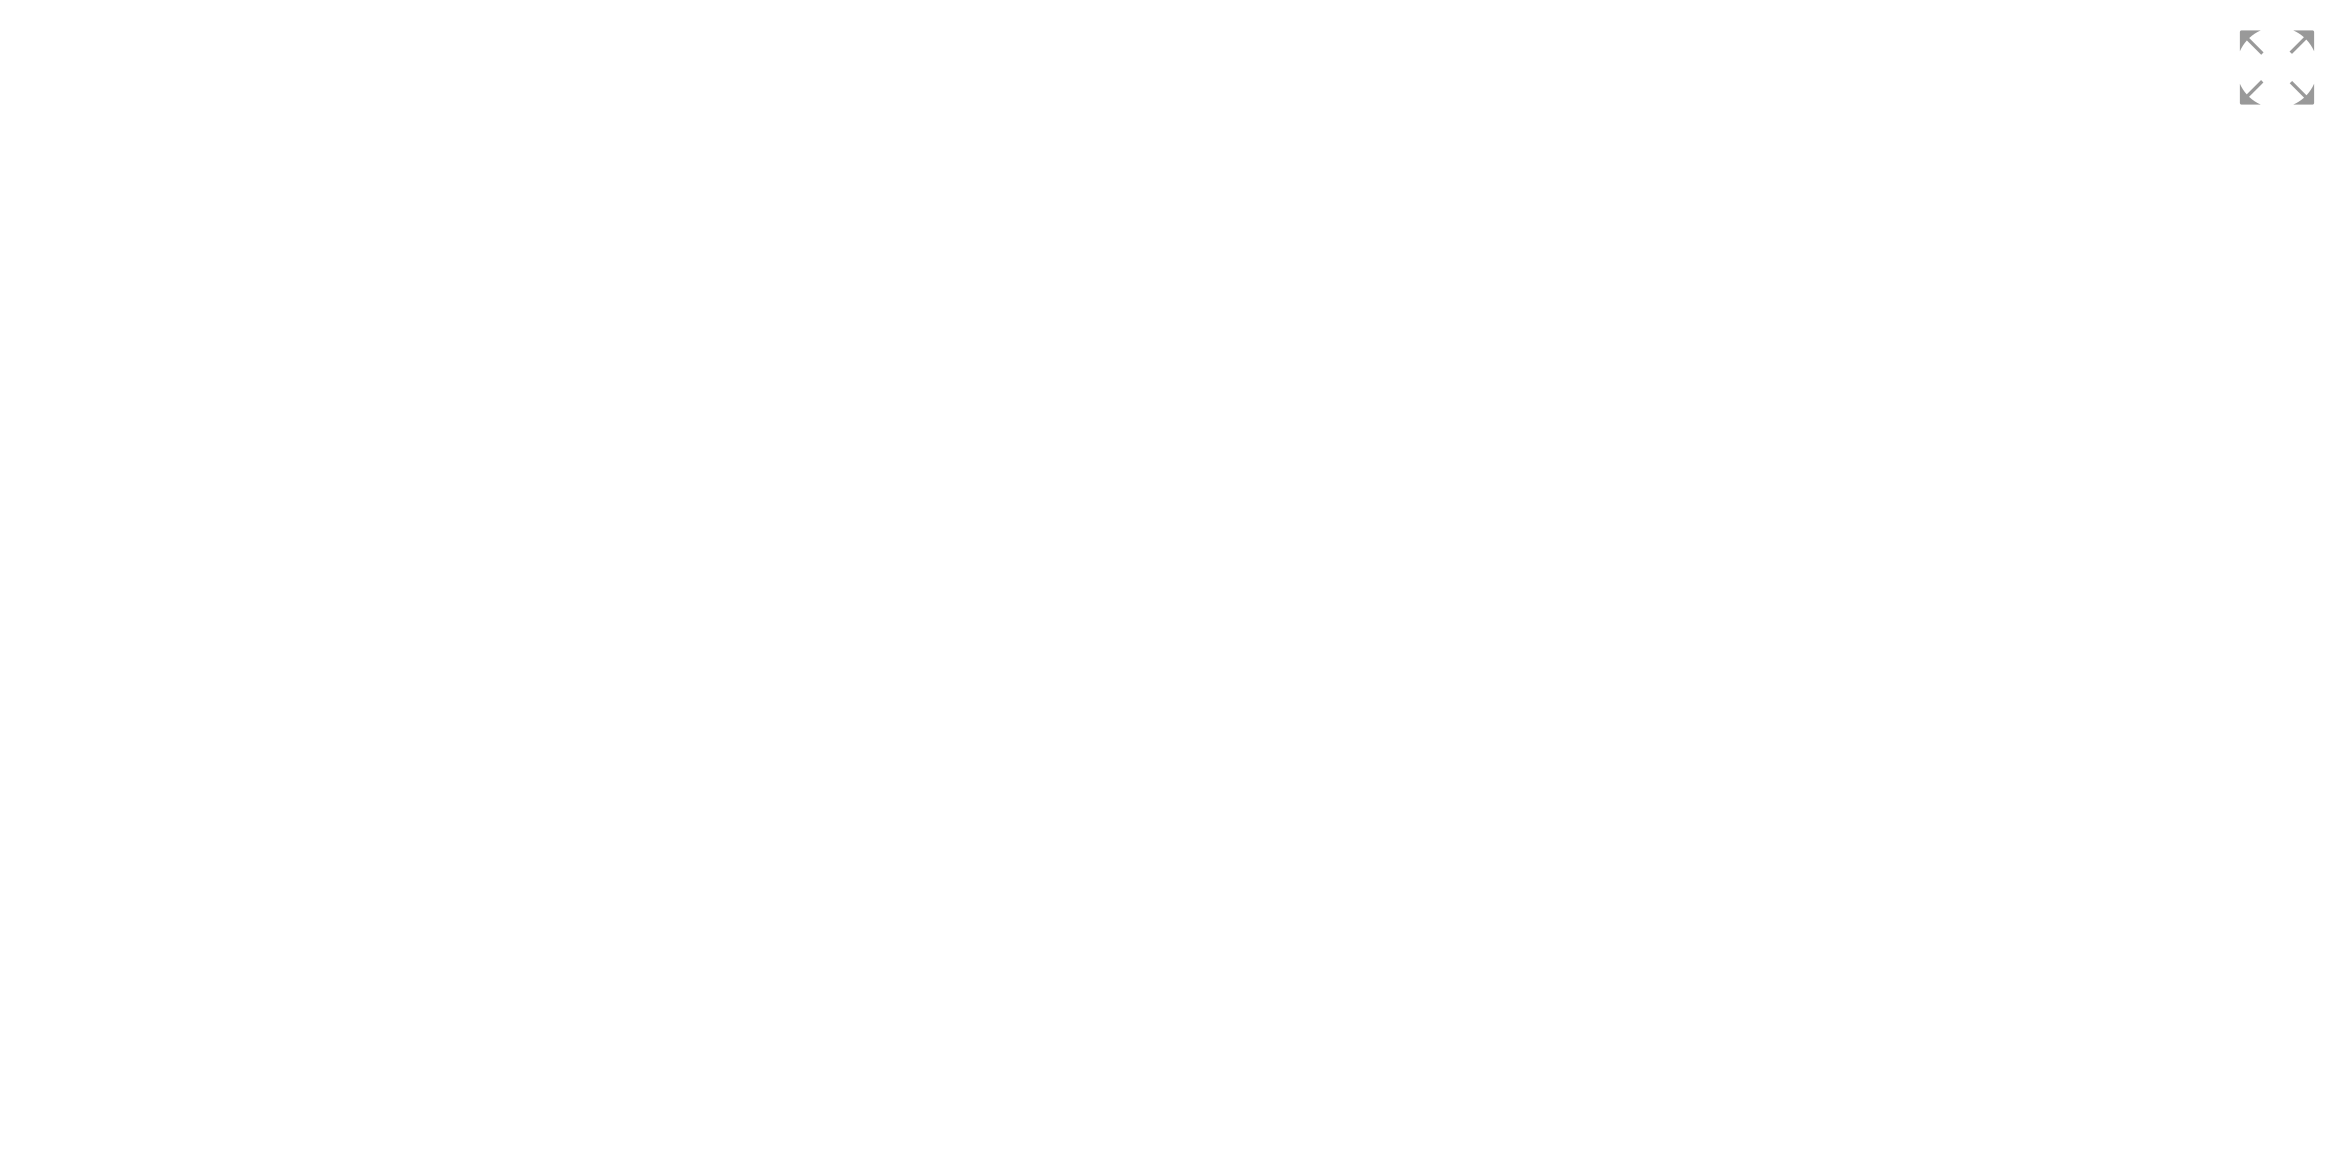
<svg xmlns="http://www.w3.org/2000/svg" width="2343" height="1157">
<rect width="100%" height="100%" fill="#fff"/>
<image x="2239" y="30" width="76" height="75" href="media/1.png"/>
</svg>
